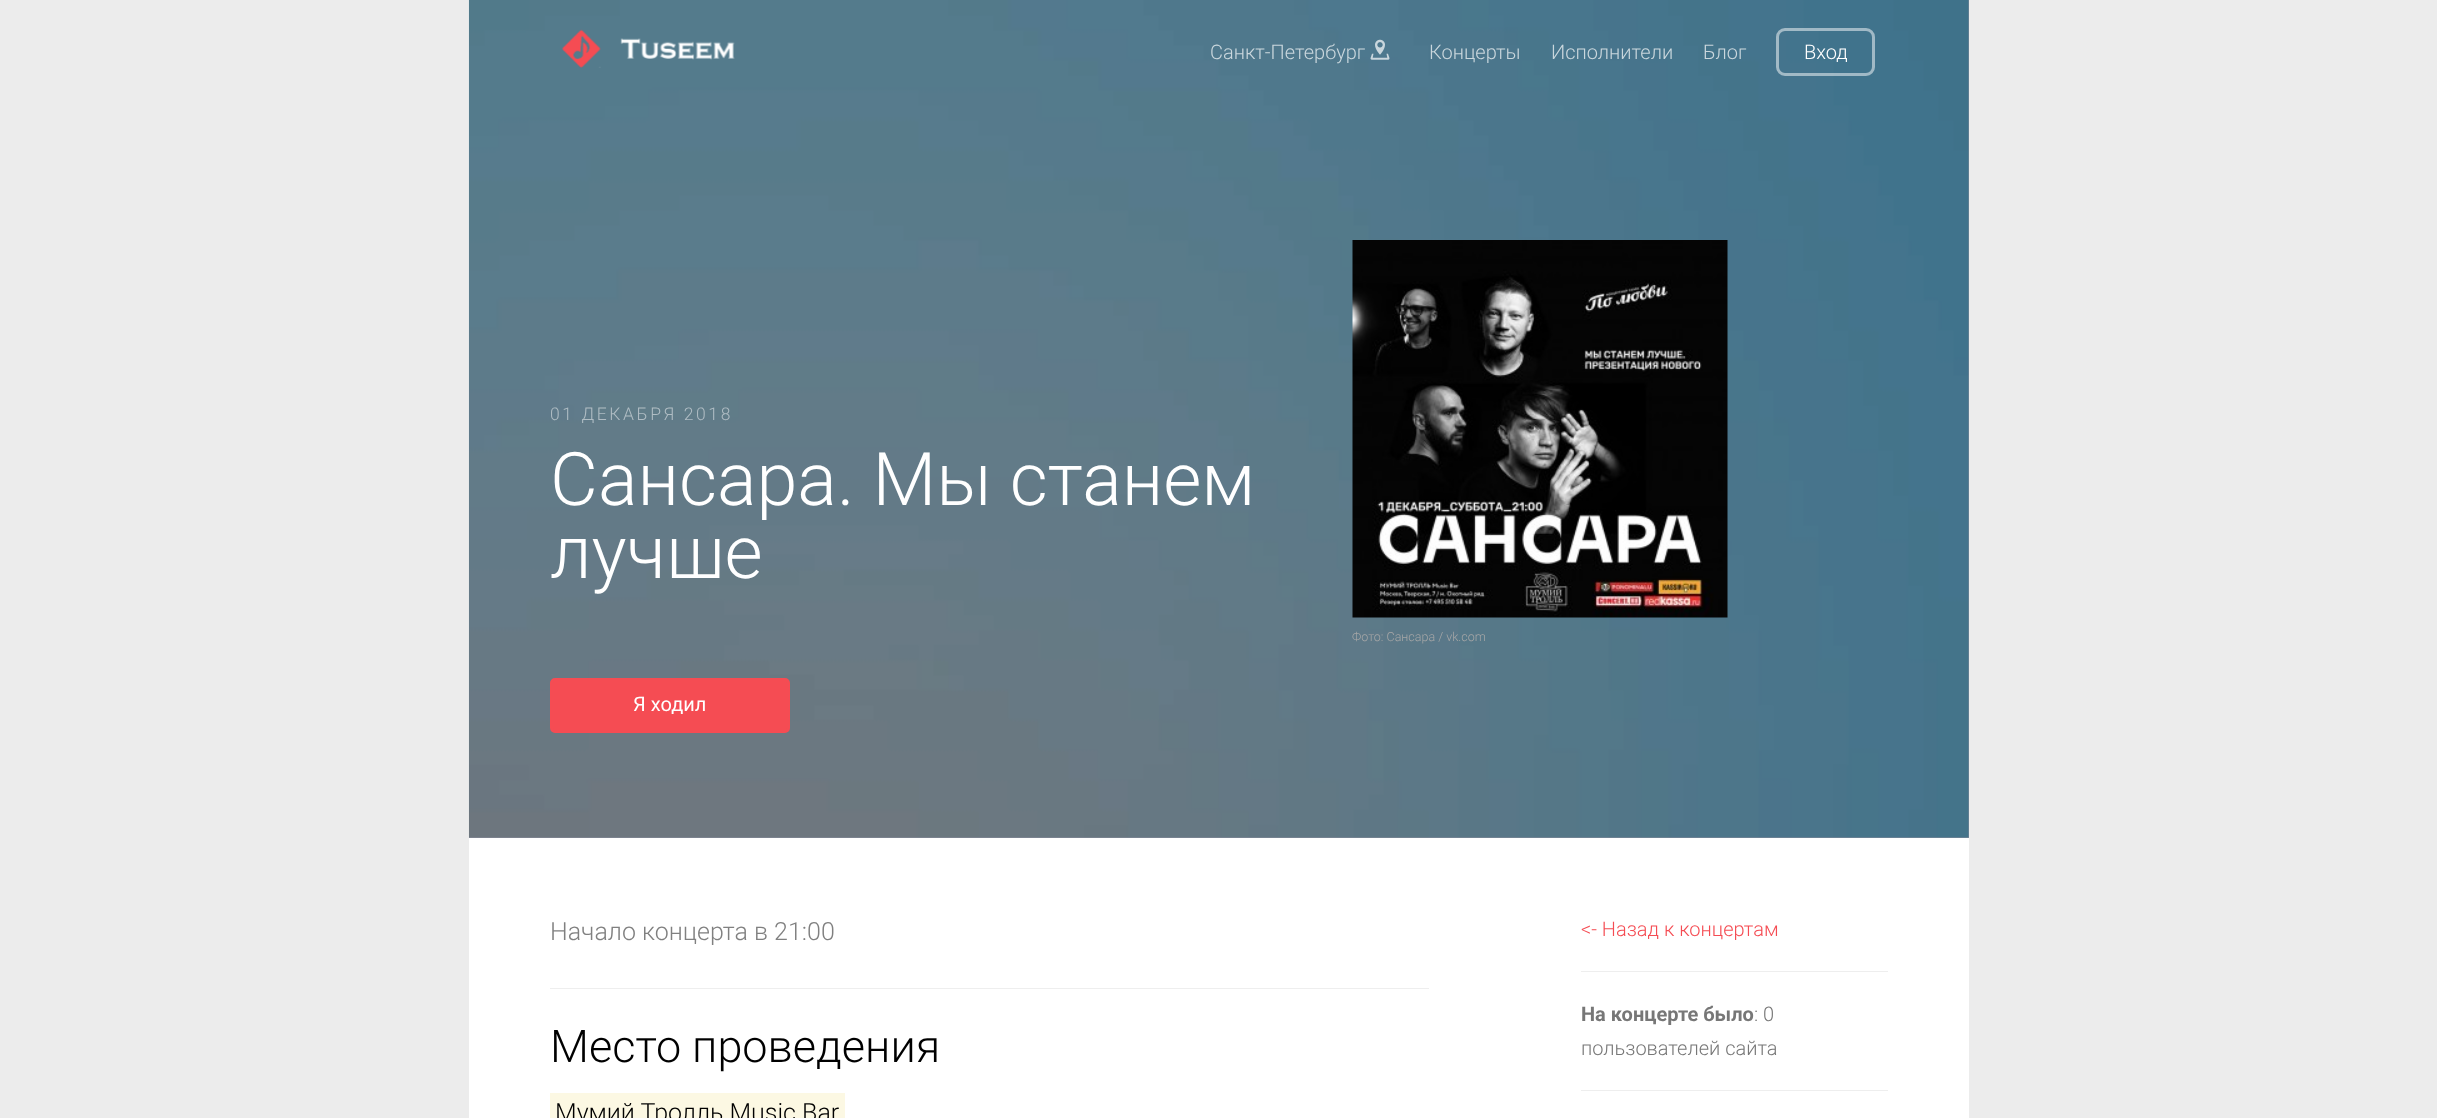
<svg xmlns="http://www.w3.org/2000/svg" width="2437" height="1118">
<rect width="100%" height="100%" fill="#ececec"/>
<rect x="469" y="838" width="1500" height="280" fill="#fff"/>
<rect x="469" width="1500" height="838" fill="#8b8e9e"/>
<image x="468" y="0" width="1501" height="838" href="media/4.png"/>
<image x="562" y="29" width="39" height="39" href="media/1.png"/>
<image x="620" y="38" width="115" height="22" href="media/2.png"/>
<text x="1210" y="59" style="font-family:Roboto;font-size:20px;font-weight:300;fill:#cad7dd">Санкт-Петербург</text>
<image x="1370" y="39" width="20" height="21" href="media/3.png"/>
<text x="1429" y="59" style="font-family:Roboto;font-size:20px;font-weight:300;fill:#cad7dd">Концерты</text>
<text x="1551" y="59" style="font-family:Roboto;font-size:20px;font-weight:300;fill:#cad7dd">Исполнители</text>
<text x="1703" y="59" style="font-family:Roboto;font-size:20px;font-weight:300;fill:#cad7dd">Блог</text>
<rect x="1777.5" y="29.5" width="96" height="45" rx="7.5" fill="none" stroke="#ffffff80" stroke-width="3"/>
<text x="1804" y="59" style="font-family:Roboto;font-size:20px;font-weight:300;fill:#fff">Вход</text>
<text x="550" y="420" style="font-family:Roboto;font-size:17.5px;font-weight:300;letter-spacing:2.6px;fill:#b0bdc4">01 ДЕКАБРЯ 2018</text>
<text x="550" y="505" style="font-family:Roboto;font-size:73.75px;font-weight:300;fill:#fff">Сансара. Мы станем</text>
<text x="550" y="578" style="font-family:Roboto;font-size:73.75px;font-weight:300;fill:#fff">лучше</text>
<rect x="551.5" y="679.5" width="237" height="52" rx="3.5" fill="#f54c53" stroke="#f54c53" stroke-width="3"/>
<text x="633" y="711" style="font-family:Roboto;font-size:20px;fill:#fff">Я ходил</text>
<image x="1352" y="240" width="376" height="378" href="media/5.png"/>
<text x="1352" y="641" style="font-family:Roboto;font-size:12.5px;font-weight:300;fill:#a7a7a7">Фото: Сансара / vk.com</text>
<text x="550" y="940" style="font-family:Roboto;font-size:25px;font-weight:300;fill:#808080">Начало концерта в 21:00</text>
<rect x="550" y="988" width="879" height="1" fill="#eee"/>
<text x="550" y="1062" style="font-family:Roboto;font-size:45px;font-weight:300;fill:#000">Место проведения</text>
<rect x="550" y="1093" width="295" height="25" fill="#fcf8e3"/>
<text x="555" y="1121" style="font-family:Roboto;font-size:25px;font-weight:300;fill:#000">Мумий Тролль Music Bar</text>
<text x="1581" y="936" style="font-family:Roboto;font-size:20px;font-weight:300;fill:#f54c53">&lt;- Назад к концертам</text>
<rect x="1581" y="971" width="307" height="1" fill="#eee"/>
<text x="1581" y="1021" style="font-family:Roboto;font-size:20px;font-weight:bold;fill:#777">На концерте было</text>
<text x="1754" y="1021" style="font-family:Roboto;font-size:20px;font-weight:300;fill:#777">: 0</text>
<text x="1581" y="1055" style="font-family:Roboto;font-size:20px;font-weight:300;fill:#777">пользователей сайта</text>
<rect x="1581" y="1090" width="307" height="1" fill="#eee"/>
</svg>
